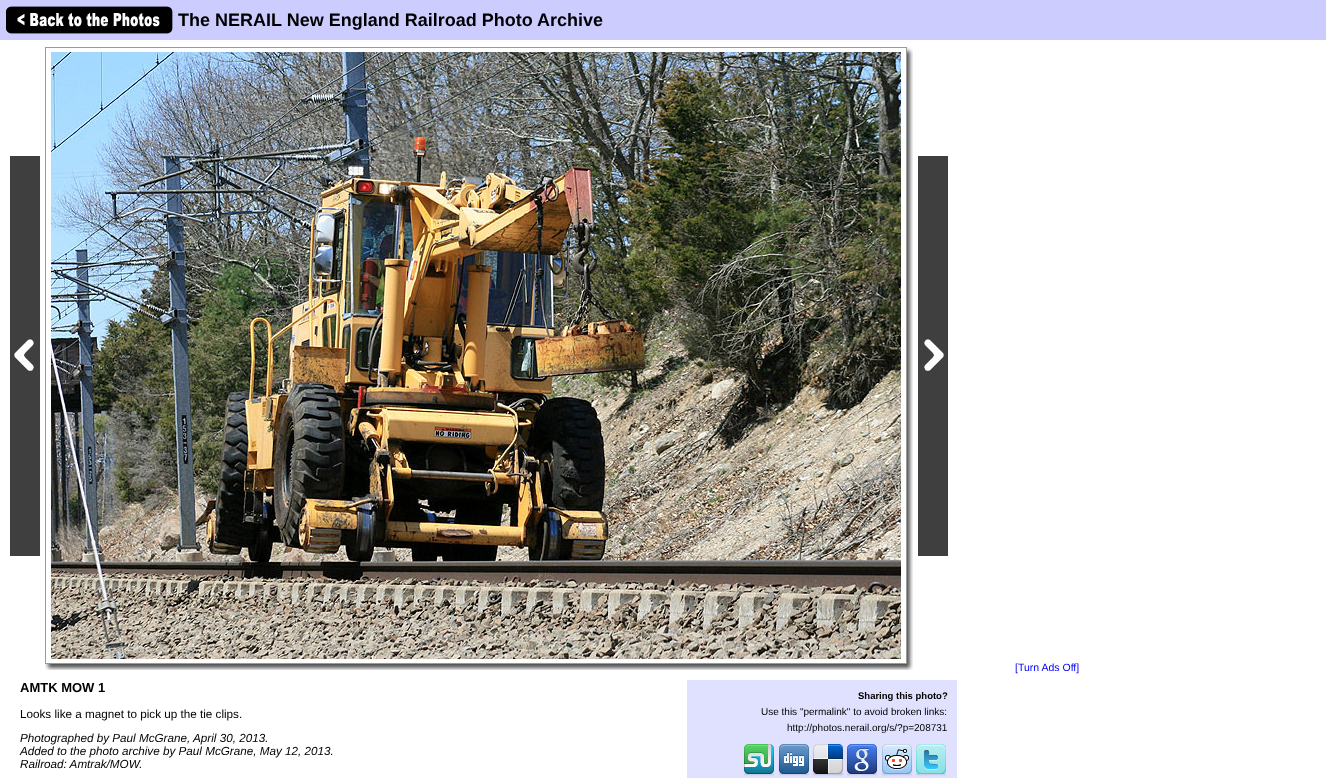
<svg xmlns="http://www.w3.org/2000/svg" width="1326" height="778">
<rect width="100%" height="100%" fill="#fff"/>
<rect width="1326" height="40" fill="#ccf"/>
<image x="6" y="6" width="167" height="28" href="media/1.png"/>
<text x="178" y="26" style="font-family:Liberation Sans;font-size:18px;font-weight:bold;fill:#000">The NERAIL New England Railroad Photo Archive</text>
<text x="1015" y="671" style="font-family:Liberation Sans;font-size:10.5px;fill:#00f">[Turn Ads Off]</text>
<image x="10" y="156" width="30" height="400" href="media/2.png"/>
<rect x="45.5" y="47.5" width="861" height="616" fill="none" stroke="#9a9a9a"/>
<image x="51" y="52" width="850" height="607" href="media/3.png"/>
<image x="907" y="47" width="6" height="617" href="media/4.png"/>
<image x="918" y="156" width="30" height="400" href="media/5.png"/>
<image x="45" y="664" width="862" height="6" href="media/6.png"/>
<image x="907" y="664" width="6" height="6" href="media/7.png"/>
<text x="20" y="692" style="font-family:Liberation Sans;font-size:13px;font-weight:bold;fill:#000">AMTK MOW 1</text>
<text x="20" y="718" style="font-family:Liberation Sans;font-size:11.7px;fill:#000">Looks like a magnet to pick up the tie clips.</text>
<text x="20" y="742" style="font-family:Liberation Sans;font-size:11.7px;font-style:italic;fill:#000">Photographed by Paul McGrane, April 30, 2013.</text>
<text x="20" y="755" style="font-family:Liberation Sans;font-size:11.7px;font-style:italic;fill:#000">Added to the photo archive by Paul McGrane, May 12, 2013.</text>
<text x="20" y="768" style="font-family:Liberation Sans;font-size:11.7px;font-style:italic;fill:#000">Railroad: Amtrak/MOW.</text>
<rect x="687" y="680" width="270" height="98" fill="#e0e0ff"/>
<text x="858" y="699" style="font-family:Liberation Sans;font-size:9.5px;font-weight:bold;fill:#000">Sharing this photo?</text>
<text x="761" y="715" style="font-family:Liberation Sans;font-size:10px;fill:#000">Use this "permalink" to avoid broken links:</text>
<text x="787" y="731" style="font-family:Liberation Sans;font-size:10px;fill:#000">http://photos.nerail.org/s/?p=208731</text>
<image x="744" y="744" width="30" height="32" href="media/8.png"/>
<image x="779" y="744" width="30" height="32" href="media/9.png"/>
<image x="812" y="744" width="32" height="32" href="media/10.png"/>
<image x="847" y="744" width="30" height="32" href="media/11.png"/>
<image x="882" y="744" width="30" height="32" href="media/12.png"/>
<image x="916" y="744" width="30" height="32" href="media/13.png"/>
</svg>
